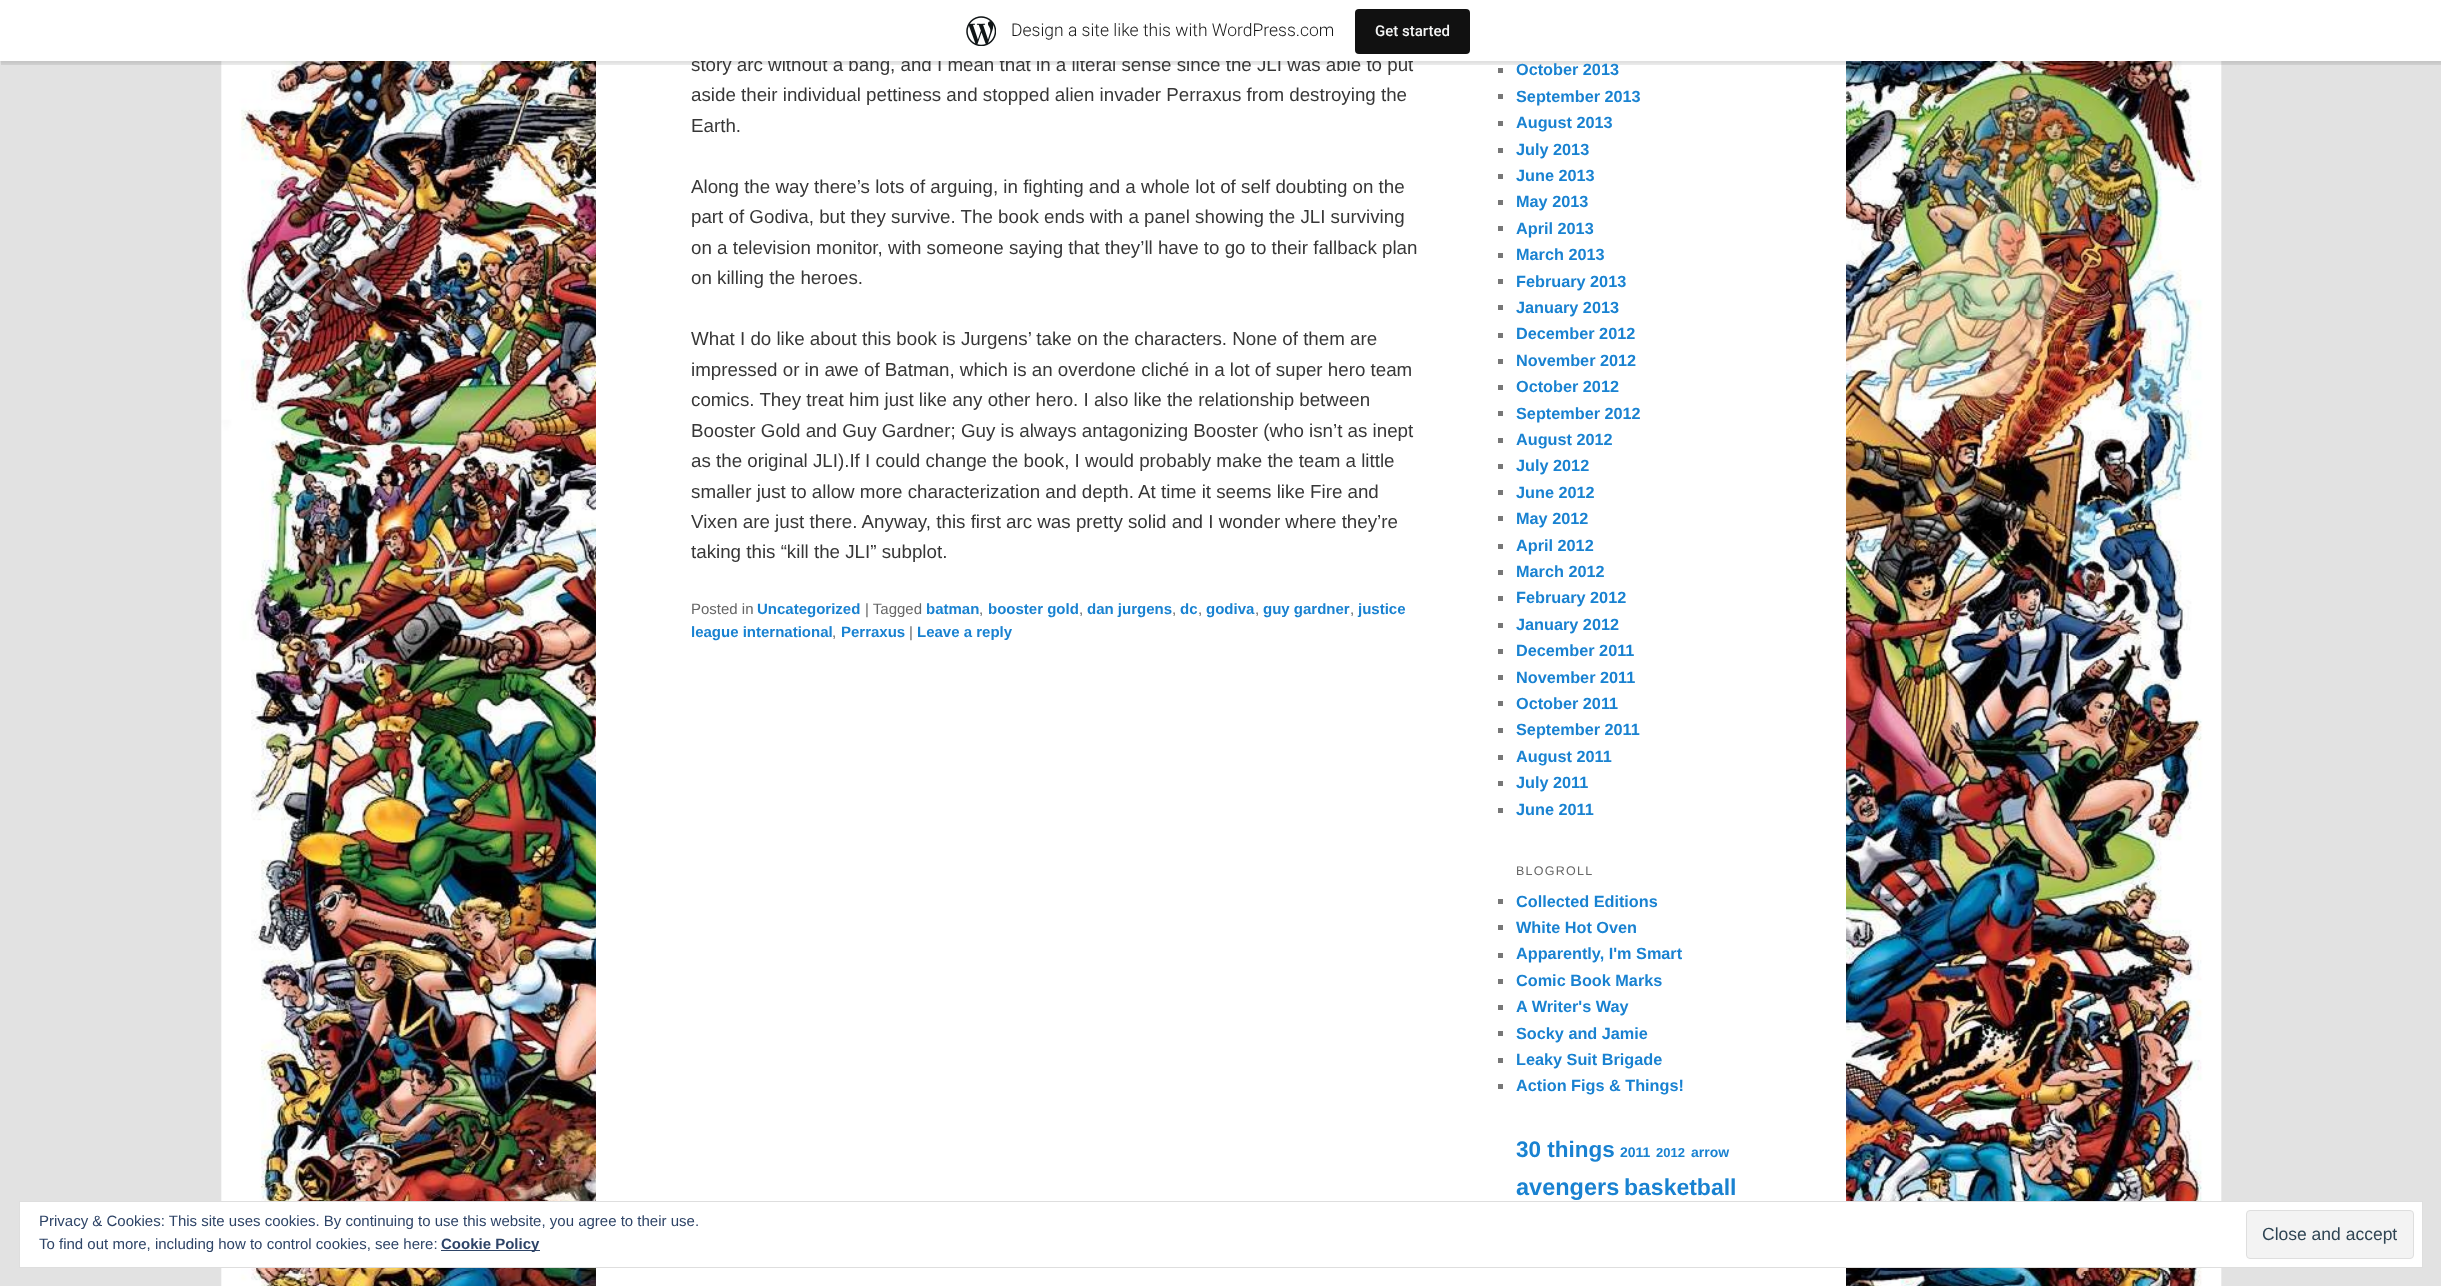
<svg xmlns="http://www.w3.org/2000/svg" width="2441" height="1286">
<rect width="100%" height="100%" fill="#e2e2e2"/>
<image x="221" y="61" width="2001" height="1225" href="media/1.png"/>
<rect x="596" y="61" width="1250" height="1225" fill="#fff"/>
<rect y="1" width="2441" height="62" fill="#0000000d" filter="blur(1px)"/>
<path d="M1 61v4h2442v-61h-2v57z" fill="#00000014"/>
<text x="691" y="71" style="font-family:Liberation Sans;font-size:18.75px;fill:#373737">story arc without a bang, and I mean that in a literal sense since the JLI was able to put</text>
<rect width="2441" height="61" fill="#fff"/>
<image x="966" y="16" width="30" height="30" href="media/2.png"/>
<text x="1011" y="36" style="font-family:Roboto;font-size:17.5px;font-weight:300;fill:#171717">Design a site like this with WordPress.com</text>
<rect x="1355" y="9" width="115" height="45" rx="4" fill="#111"/>
<text x="1375" y="36" style="font-family:Roboto;font-size:15px;font-weight:500;fill:#f6f7f7">Get started</text>
<text x="691" y="101" style="font-family:Liberation Sans;font-size:18.75px;fill:#373737">aside their individual pettiness and stopped alien invader Perraxus from destroying the</text>
<text x="691" y="132" style="font-family:Liberation Sans;font-size:18.75px;fill:#373737">Earth.</text>
<text x="691" y="193" style="font-family:Liberation Sans;font-size:18.75px;fill:#373737">Along the way there’s lots of arguing, in fighting and a whole lot of self doubting on the</text>
<text x="691" y="223" style="font-family:Liberation Sans;font-size:18.75px;fill:#373737">part of Godiva, but they survive. The book ends with a panel showing the JLI surviving</text>
<text x="691" y="254" style="font-family:Liberation Sans;font-size:18.75px;fill:#373737">on a television monitor, with someone saying that they’ll have to go to their fallback plan</text>
<text x="691" y="284" style="font-family:Liberation Sans;font-size:18.75px;fill:#373737">on killing the heroes.</text>
<text x="691" y="345" style="font-family:Liberation Sans;font-size:18.75px;fill:#373737">What I do like about this book is Jurgens’ take on the characters. None of them are</text>
<text x="691" y="376" style="font-family:Liberation Sans;font-size:18.75px;fill:#373737">impressed or in awe of Batman, which is an overdone cliché in a lot of super hero team</text>
<text x="691" y="406" style="font-family:Liberation Sans;font-size:18.75px;fill:#373737">comics. They treat him just like any other hero. I also like the relationship between</text>
<text x="691" y="437" style="font-family:Liberation Sans;font-size:18.75px;fill:#373737">Booster Gold and Guy Gardner; Guy is always antagonizing Booster (who isn’t as inept</text>
<text x="691" y="467" style="font-family:Liberation Sans;font-size:18.75px;fill:#373737">as the original JLI).If I could change the book, I would probably make the team a little</text>
<text x="691" y="498" style="font-family:Liberation Sans;font-size:18.75px;fill:#373737">smaller just to allow more characterization and depth. At time it seems like Fire and</text>
<text x="691" y="528" style="font-family:Liberation Sans;font-size:18.75px;fill:#373737">Vixen are just there. Anyway, this first arc was pretty solid and I wonder where they’re</text>
<text x="691" y="558" style="font-family:Liberation Sans;font-size:18.75px;fill:#373737">taking this “kill the JLI” subplot.</text>
<text x="691" y="614" style="font-family:Liberation Sans;font-size:15px;fill:#666">Posted in</text>
<text x="757" y="614" style="font-family:Liberation Sans;font-size:15px;font-weight:bold;fill:#1982d1">Uncategorized</text>
<text x="865" y="614" style="font-family:Liberation Sans;font-size:15px;fill:#666">| Tagged</text>
<text x="926" y="614" style="font-family:Liberation Sans;font-size:15px;font-weight:bold;fill:#1982d1">batman</text>
<text x="979" y="614" style="font-family:Liberation Sans;font-size:15px;fill:#666">,</text>
<text x="988" y="614" style="font-family:Liberation Sans;font-size:15px;font-weight:bold;fill:#1982d1">booster gold</text>
<text x="1079" y="614" style="font-family:Liberation Sans;font-size:15px;fill:#666">,</text>
<text x="1087" y="614" style="font-family:Liberation Sans;font-size:15px;font-weight:bold;fill:#1982d1">dan jurgens</text>
<text x="1172" y="614" style="font-family:Liberation Sans;font-size:15px;fill:#666">,</text>
<text x="1180" y="614" style="font-family:Liberation Sans;font-size:15px;font-weight:bold;fill:#1982d1">dc</text>
<text x="1198" y="614" style="font-family:Liberation Sans;font-size:15px;fill:#666">,</text>
<text x="1206" y="614" style="font-family:Liberation Sans;font-size:15px;font-weight:bold;fill:#1982d1">godiva</text>
<text x="1255" y="614" style="font-family:Liberation Sans;font-size:15px;fill:#666">,</text>
<text x="1263" y="614" style="font-family:Liberation Sans;font-size:15px;font-weight:bold;fill:#1982d1">guy gardner</text>
<text x="1350" y="614" style="font-family:Liberation Sans;font-size:15px;fill:#666">,</text>
<text x="1358" y="614" style="font-family:Liberation Sans;font-size:15px;font-weight:bold;fill:#1982d1">justice</text>
<text x="691" y="637" style="font-family:Liberation Sans;font-size:15px;font-weight:bold;fill:#1982d1">league international</text>
<text x="832" y="637" style="font-family:Liberation Sans;font-size:15px;fill:#666">,</text>
<text x="841" y="637" style="font-family:Liberation Sans;font-size:15px;font-weight:bold;fill:#1982d1">Perraxus</text>
<text x="909" y="637" style="font-family:Liberation Sans;font-size:15px;fill:#666">|</text>
<text x="917" y="637" style="font-family:Liberation Sans;font-size:15px;font-weight:bold;fill:#1982d1">Leave a reply</text>
<rect x="1498" y="68" width="5" height="5" fill="#777"/>
<text x="1516" y="75" style="font-family:Liberation Sans;font-size:16.25px;font-weight:bold;fill:#1982d1">October 2013</text>
<rect x="1498" y="94" width="5" height="5" fill="#777"/>
<text x="1516" y="102" style="font-family:Liberation Sans;font-size:16.25px;font-weight:bold;fill:#1982d1">September 2013</text>
<rect x="1498" y="121" width="5" height="5" fill="#777"/>
<text x="1516" y="128" style="font-family:Liberation Sans;font-size:16.25px;font-weight:bold;fill:#1982d1">August 2013</text>
<rect x="1498" y="148" width="5" height="5" fill="#777"/>
<text x="1516" y="155" style="font-family:Liberation Sans;font-size:16.25px;font-weight:bold;fill:#1982d1">July 2013</text>
<rect x="1498" y="174" width="5" height="5" fill="#777"/>
<text x="1516" y="181" style="font-family:Liberation Sans;font-size:16.25px;font-weight:bold;fill:#1982d1">June 2013</text>
<rect x="1498" y="200" width="5" height="5" fill="#777"/>
<text x="1516" y="207" style="font-family:Liberation Sans;font-size:16.25px;font-weight:bold;fill:#1982d1">May 2013</text>
<rect x="1498" y="226" width="5" height="5" fill="#777"/>
<text x="1516" y="234" style="font-family:Liberation Sans;font-size:16.25px;font-weight:bold;fill:#1982d1">April 2013</text>
<rect x="1498" y="253" width="5" height="5" fill="#777"/>
<text x="1516" y="260" style="font-family:Liberation Sans;font-size:16.25px;font-weight:bold;fill:#1982d1">March 2013</text>
<rect x="1498" y="279" width="5" height="5" fill="#777"/>
<text x="1516" y="287" style="font-family:Liberation Sans;font-size:16.25px;font-weight:bold;fill:#1982d1">February 2013</text>
<rect x="1498" y="305" width="5" height="5" fill="#777"/>
<text x="1516" y="313" style="font-family:Liberation Sans;font-size:16.25px;font-weight:bold;fill:#1982d1">January 2013</text>
<rect x="1498" y="333" width="5" height="5" fill="#777"/>
<text x="1516" y="339" style="font-family:Liberation Sans;font-size:16.25px;font-weight:bold;fill:#1982d1">December 2012</text>
<rect x="1498" y="359" width="5" height="5" fill="#777"/>
<text x="1516" y="366" style="font-family:Liberation Sans;font-size:16.25px;font-weight:bold;fill:#1982d1">November 2012</text>
<rect x="1498" y="385" width="5" height="5" fill="#777"/>
<text x="1516" y="392" style="font-family:Liberation Sans;font-size:16.25px;font-weight:bold;fill:#1982d1">October 2012</text>
<rect x="1498" y="411" width="5" height="5" fill="#777"/>
<text x="1516" y="419" style="font-family:Liberation Sans;font-size:16.25px;font-weight:bold;fill:#1982d1">September 2012</text>
<rect x="1498" y="438" width="5" height="5" fill="#777"/>
<text x="1516" y="445" style="font-family:Liberation Sans;font-size:16.25px;font-weight:bold;fill:#1982d1">August 2012</text>
<rect x="1498" y="464" width="5" height="5" fill="#777"/>
<text x="1516" y="471" style="font-family:Liberation Sans;font-size:16.25px;font-weight:bold;fill:#1982d1">July 2012</text>
<rect x="1498" y="490" width="5" height="5" fill="#777"/>
<text x="1516" y="498" style="font-family:Liberation Sans;font-size:16.25px;font-weight:bold;fill:#1982d1">June 2012</text>
<rect x="1498" y="516" width="5" height="5" fill="#777"/>
<text x="1516" y="524" style="font-family:Liberation Sans;font-size:16.25px;font-weight:bold;fill:#1982d1">May 2012</text>
<rect x="1498" y="544" width="5" height="5" fill="#777"/>
<text x="1516" y="551" style="font-family:Liberation Sans;font-size:16.25px;font-weight:bold;fill:#1982d1">April 2012</text>
<rect x="1498" y="570" width="5" height="5" fill="#777"/>
<text x="1516" y="577" style="font-family:Liberation Sans;font-size:16.25px;font-weight:bold;fill:#1982d1">March 2012</text>
<rect x="1498" y="596" width="5" height="5" fill="#777"/>
<text x="1516" y="603" style="font-family:Liberation Sans;font-size:16.25px;font-weight:bold;fill:#1982d1">February 2012</text>
<rect x="1498" y="623" width="5" height="5" fill="#777"/>
<text x="1516" y="630" style="font-family:Liberation Sans;font-size:16.25px;font-weight:bold;fill:#1982d1">January 2012</text>
<rect x="1498" y="649" width="5" height="5" fill="#777"/>
<text x="1516" y="656" style="font-family:Liberation Sans;font-size:16.25px;font-weight:bold;fill:#1982d1">December 2011</text>
<rect x="1498" y="675" width="5" height="5" fill="#777"/>
<text x="1516" y="683" style="font-family:Liberation Sans;font-size:16.25px;font-weight:bold;fill:#1982d1">November 2011</text>
<rect x="1498" y="701" width="5" height="5" fill="#777"/>
<text x="1516" y="709" style="font-family:Liberation Sans;font-size:16.25px;font-weight:bold;fill:#1982d1">October 2011</text>
<rect x="1498" y="728" width="5" height="5" fill="#777"/>
<text x="1516" y="735" style="font-family:Liberation Sans;font-size:16.25px;font-weight:bold;fill:#1982d1">September 2011</text>
<rect x="1498" y="755" width="5" height="5" fill="#777"/>
<text x="1516" y="762" style="font-family:Liberation Sans;font-size:16.25px;font-weight:bold;fill:#1982d1">August 2011</text>
<rect x="1498" y="781" width="5" height="5" fill="#777"/>
<text x="1516" y="788" style="font-family:Liberation Sans;font-size:16.25px;font-weight:bold;fill:#1982d1">July 2011</text>
<rect x="1498" y="808" width="5" height="5" fill="#777"/>
<text x="1516" y="815" style="font-family:Liberation Sans;font-size:16.25px;font-weight:bold;fill:#1982d1">June 2011</text>
<text x="1516" y="875" style="font-family:Liberation Sans;font-size:12.5px;letter-spacing:1.25px;fill:#666">BLOGROLL</text>
<rect x="1498" y="899" width="5" height="5" fill="#777"/>
<text x="1516" y="907" style="font-family:Liberation Sans;font-size:16.25px;font-weight:bold;fill:#1982d1">Collected Editions</text>
<rect x="1498" y="925" width="5" height="5" fill="#777"/>
<text x="1516" y="933" style="font-family:Liberation Sans;font-size:16.25px;font-weight:bold;fill:#1982d1">White Hot Oven</text>
<rect x="1498" y="953" width="5" height="5" fill="#777"/>
<text x="1516" y="959" style="font-family:Liberation Sans;font-size:16.25px;font-weight:bold;fill:#1982d1">Apparently, I'm Smart</text>
<rect x="1498" y="979" width="5" height="5" fill="#777"/>
<text x="1516" y="986" style="font-family:Liberation Sans;font-size:16.25px;font-weight:bold;fill:#1982d1">Comic Book Marks</text>
<rect x="1498" y="1005" width="5" height="5" fill="#777"/>
<text x="1516" y="1012" style="font-family:Liberation Sans;font-size:16.25px;font-weight:bold;fill:#1982d1">A Writer's Way</text>
<rect x="1498" y="1031" width="5" height="5" fill="#777"/>
<text x="1516" y="1039" style="font-family:Liberation Sans;font-size:16.25px;font-weight:bold;fill:#1982d1">Socky and Jamie</text>
<rect x="1498" y="1058" width="5" height="5" fill="#777"/>
<text x="1516" y="1065" style="font-family:Liberation Sans;font-size:16.25px;font-weight:bold;fill:#1982d1">Leaky Suit Brigade</text>
<rect x="1498" y="1084" width="5" height="5" fill="#777"/>
<text x="1516" y="1091" style="font-family:Liberation Sans;font-size:16.25px;font-weight:bold;fill:#1982d1">Action Figs &amp; Things!</text>
<text x="1516" y="1157" style="font-family:Liberation Sans;font-size:22.5px;font-weight:bold;fill:#1982d1">30 things</text>
<text x="1620" y="1157" style="font-family:Liberation Sans;font-size:14px;font-weight:bold;fill:#1982d1">2011</text>
<text x="1656" y="1157" style="font-family:Liberation Sans;font-size:13px;font-weight:bold;fill:#1982d1">2012</text>
<text x="1691" y="1157" style="font-family:Liberation Sans;font-size:14px;font-weight:bold;fill:#1982d1">arrow</text>
<text x="1516" y="1195" style="font-family:Liberation Sans;font-size:23.5px;font-weight:bold;fill:#1982d1">avengers</text>
<text x="1624" y="1195" style="font-family:Liberation Sans;font-size:23px;font-weight:bold;fill:#1982d1">basketball</text>
<rect x="19.5" y="1201.5" width="2403" height="66" fill="#fff" stroke="#dedede"/>
<text x="39" y="1226" style="font-family:Liberation Sans;font-size:15px;fill:#2e4467">Privacy &amp; Cookies: This site uses cookies. By continuing to use this website, you agree to their use.</text>
<rect x="2246.5" y="1210.5" width="167" height="48" rx="3.5" fill="#f3f3f3" stroke="#dedede"/>
<text x="2262" y="1240" style="font-family:Liberation Sans;font-size:17.5px;fill:#2e4453">Close and accept</text>
<text x="39" y="1249" style="font-family:Liberation Sans;font-size:15px;fill:#2e4467">To find out more, including how to control cookies, see here:</text>
<rect x="441" y="1250" width="99" height="1" fill="#2e4467"/>
<text x="441" y="1249" style="font-family:Liberation Sans;font-size:15px;font-weight:bold;fill:#2e4467">Cookie Policy</text>
</svg>
